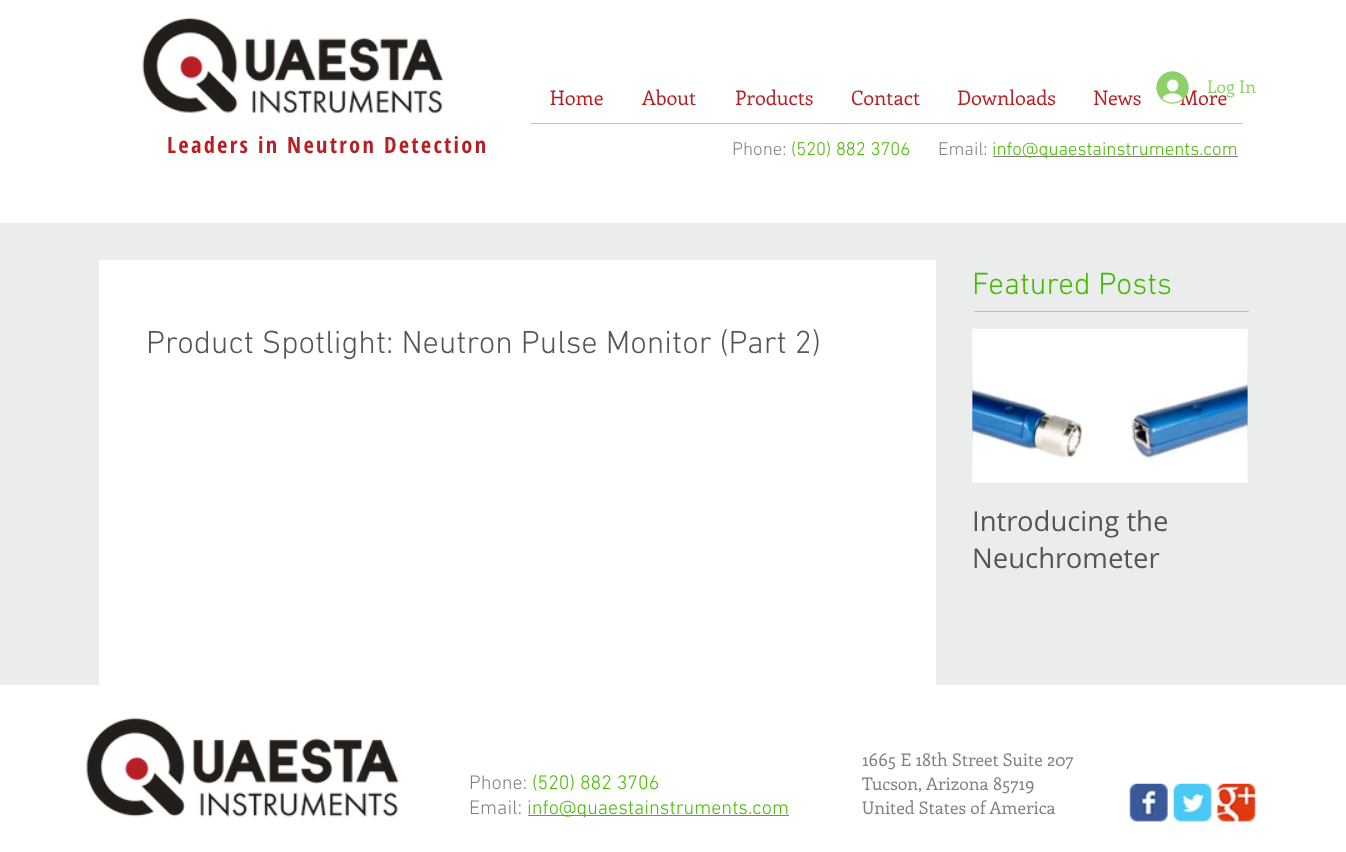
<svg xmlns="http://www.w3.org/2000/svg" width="1346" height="852">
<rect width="100%" height="100%" fill="#ebeded"/>
<rect width="1346" height="223" fill="#fff"/>
<image x="142" y="17" width="301" height="97" href="media/1.png"/>
<text x="550" y="105" style="font-family:Enriqueta;font-size:20px;fill:#b81f24">Home</text>
<text x="642" y="105" style="font-family:Enriqueta;font-size:20px;fill:#b81f24">About</text>
<text x="735" y="105" style="font-family:Enriqueta;font-size:20px;fill:#b81f24">Products</text>
<text x="851" y="105" style="font-family:Enriqueta;font-size:20px;fill:#b81f24">Contact</text>
<text x="957" y="105" style="font-family:Enriqueta;font-size:20px;fill:#b81f24">Downloads</text>
<text x="1093" y="105" style="font-family:Enriqueta;font-size:20px;fill:#b81f24">News</text>
<text x="1180" y="105" style="font-family:Enriqueta;font-size:20px;fill:#b81f24">More</text>
<image x="1156" y="71" width="33" height="33" href="media/2.png"/>
<text x="1207" y="93" style="font-family:Enriqueta;font-size:17.5px;fill:#8fd169">Log In</text>
<rect x="531" y="123" width="712" height="1" fill="#c4c1ba"/>
<text x="167" y="153" style="font-family:Open Sans Condensed;font-size:22.5px;font-weight:bold;letter-spacing:2.25px;fill:#b81f24">Leaders in Neutron Detection</text>
<text x="732" y="155" style="font-family:'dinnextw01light';font-size:18.75px;font-weight:300;fill:#848079">Phone:</text>
<text x="791" y="155" style="font-family:'dinnextw01light';font-size:18.75px;font-weight:300;fill:#45ba01">(520) 882 3706</text>
<text x="938" y="155" style="font-family:'dinnextw01light';font-size:18.75px;font-weight:300;fill:#848079">Email:</text>
<rect x="993" y="156" width="245" height="1" fill="#848079"/>
<text x="992" y="155" style="font-family:'dinnextw01light';font-size:18.75px;font-weight:300;fill:#45ba01">info@quaestainstruments.com</text>
<text x="972" y="294" style="font-family:'dinnextw01light';font-size:31.25px;font-weight:300;fill:#45ba01">Featured Posts</text>
<rect x="974" y="311" width="275" height="1" fill="#c0bdb7"/>
<rect x="99" y="260" width="837" height="425" fill="#fff"/>
<text x="146" y="353" style="font-family:'dinnextw01light';font-size:32.5px;font-weight:300;fill:#585551">Product Spotlight: Neutron Pulse Monitor (Part 2)</text>
<image x="972" y="328" width="276" height="155" href="media/3.png"/>
<image x="972" y="329" width="276" height="154" href="media/4.png"/>
<text x="972" y="531" style="font-family:Open Sans;font-size:27.5px;fill:#585551">Introducing the</text>
<text x="972" y="568" style="font-family:Open Sans;font-size:27.5px;fill:#585551">Neuchrometer</text>
<rect y="685" width="1346" height="167" fill="#fff"/>
<image x="86" y="717" width="313" height="100" href="media/5.png"/>
<text x="469" y="789" style="font-family:'dinnextw01light';font-size:20px;font-weight:300;fill:#848079">Phone:</text>
<text x="532" y="789" style="font-family:'dinnextw01light';font-size:20px;font-weight:300;fill:#45ba01">(520) 882 3706</text>
<text x="469" y="814" style="font-family:'dinnextw01light';font-size:20px;font-weight:300;fill:#848079">Email:</text>
<rect x="528" y="815" width="261" height="1" fill="#848079"/>
<text x="527" y="814" style="font-family:'dinnextw01light';font-size:20px;font-weight:300;fill:#45ba01">info@quaestainstruments.com</text>
<text x="862" y="766" style="font-family:Enriqueta;font-size:17.5px;fill:#848079">1665 E 18th Street Suite 207</text>
<text x="862" y="790" style="font-family:Enriqueta;font-size:17.5px;fill:#848079">Tucson, Arizona 85719</text>
<text x="862" y="814" style="font-family:Enriqueta;font-size:17.5px;fill:#848079">United States of America</text>
<image x="1129" y="783" width="39" height="39" href="media/6.png"/>
<image x="1173" y="783" width="39" height="39" href="media/7.png"/>
<image x="1216" y="783" width="40" height="39" href="media/8.png"/>
</svg>
